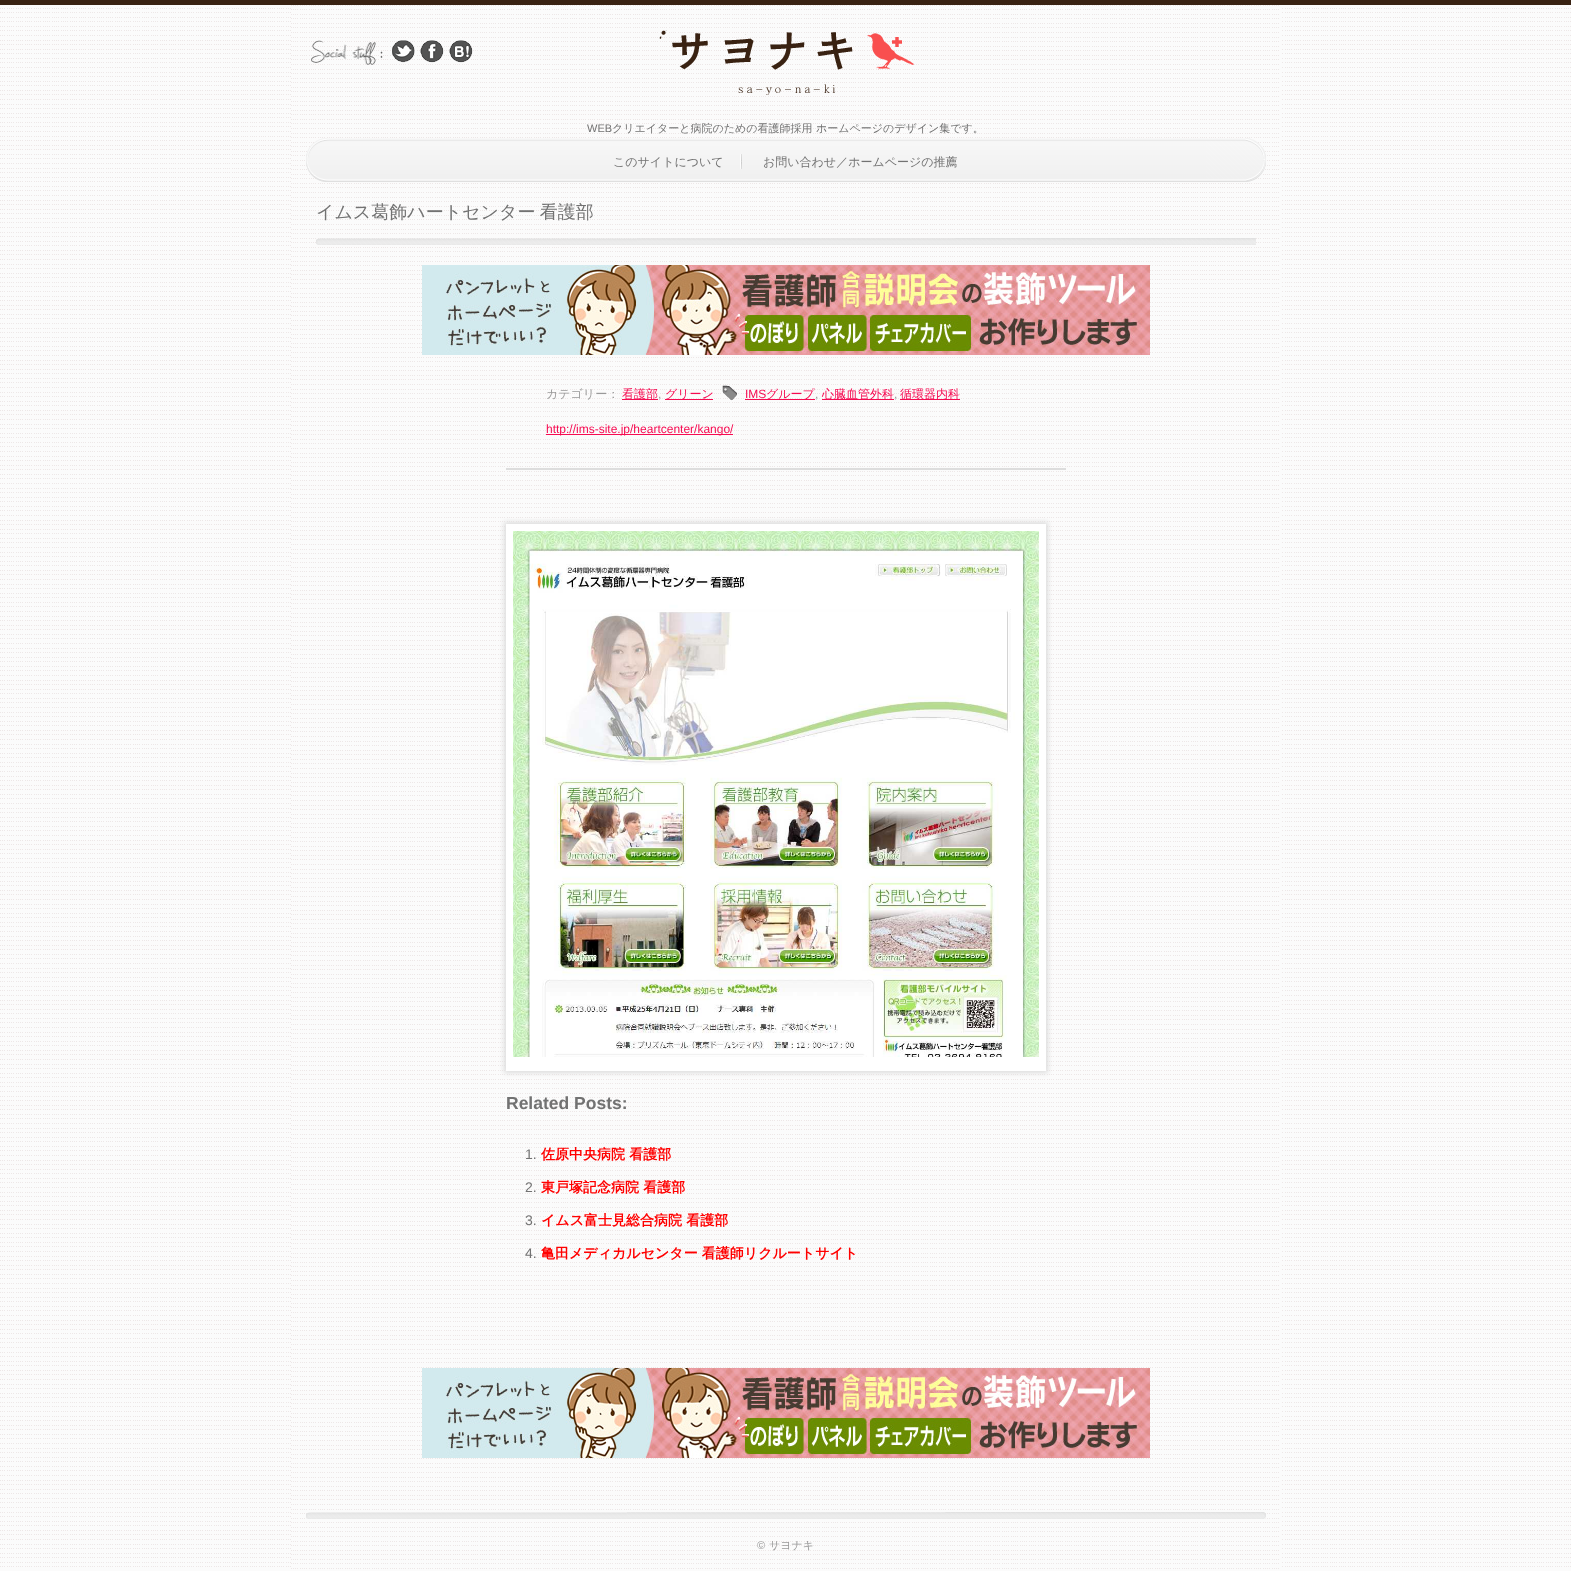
<svg xmlns="http://www.w3.org/2000/svg" width="1571" height="1571">
<rect width="100%" height="100%" fill="#fbfbfb"/>
<image x="0" y="8" width="1571" height="1559" href="media/1.png"/>
<rect width="1571" height="5" fill="#392212"/>
<rect x="292" y="8" width="989" height="1559" fill="#fbfbfb"/>
<image x="291" y="5" width="988" height="1564" href="media/2.png"/>
<image x="311" y="40" width="72" height="25" href="media/3.png"/>
<image x="392" y="40" width="23" height="23" href="media/4.png"/>
<image x="420" y="40" width="24" height="23" href="media/5.png"/>
<image x="449" y="40" width="24" height="23" href="media/6.png"/>
<image x="659" y="30" width="255" height="65" href="media/7.png"/>
<text x="587" y="132" style="font-family:Liberation Sans;font-size:11px;fill:#727272">WEB</text>
<text x="612" y="132" style="font-family:WenQuanYi Zen Hei;font-size:11px;font-weight:500;fill:#727272">クリエイターと病院のための看護師採用 ホームページのデザイン集です。</text>
<image x="306" y="138" width="960" height="44" href="media/8.png"/>
<text x="613" y="166" style="font-family:WenQuanYi Zen Hei;font-size:12px;font-weight:500;fill:#727272">このサイトについて</text>
<image x="740" y="154" width="2" height="15" href="media/9.png"/>
<text x="763" y="166" style="font-family:WenQuanYi Zen Hei;font-size:12px;font-weight:500;fill:#727272">お問い合わせ／ホームページの推薦</text>
<text x="316" y="218" word-spacing="-1" style="font-family:WenQuanYi Zen Hei;font-size:18px;font-weight:500;fill:#727272">イムス葛飾ハートセンター 看護部</text>
<image x="316" y="238" width="940" height="7" href="media/10.png"/>
<image x="422" y="265" width="728" height="90" href="media/11.png"/>
<rect x="506" y="468" width="560" height="2" fill="#ddd"/>
<text x="546" y="398" style="font-family:WenQuanYi Zen Hei;font-size:12px;font-weight:500;fill:#999">カテゴリー：</text>
<rect x="622" y="399" width="36" height="1" fill="#f60b51"/>
<text x="622" y="398" style="font-family:WenQuanYi Zen Hei;font-size:12px;font-weight:500;fill:#f60b51">看護部</text>
<text x="658" y="398" style="font-family:Liberation Sans;font-size:12px;fill:#999">,</text>
<rect x="665" y="399" width="48" height="1" fill="#f60b51"/>
<text x="665" y="398" style="font-family:WenQuanYi Zen Hei;font-size:12px;font-weight:500;fill:#f60b51">グリーン</text>
<image x="722" y="385" width="15" height="16" href="media/12.png"/>
<text x="745" y="398" style="font-family:Liberation Sans;font-size:12px;fill:#f60b51">IMS</text>
<rect x="745" y="399" width="70" height="1" fill="#f60b51"/>
<text x="766" y="398" style="font-family:WenQuanYi Zen Hei;font-size:12px;font-weight:500;fill:#f60b51">グループ</text>
<text x="815" y="398" style="font-family:Liberation Sans;font-size:12px;fill:#999">,</text>
<rect x="822" y="399" width="72" height="1" fill="#f60b51"/>
<text x="822" y="398" style="font-family:WenQuanYi Zen Hei;font-size:12px;font-weight:500;fill:#f60b51">心臓血管外科</text>
<text x="894" y="398" style="font-family:Liberation Sans;font-size:12px;fill:#999">,</text>
<rect x="900" y="399" width="60" height="1" fill="#f60b51"/>
<text x="900" y="398" style="font-family:WenQuanYi Zen Hei;font-size:12px;font-weight:500;fill:#f60b51">循環器内科</text>
<rect x="546" y="434" width="187" height="1" fill="#f60b51"/>
<text x="546" y="433" style="font-family:Liberation Sans;font-size:12px;fill:#f60b51">http://ims-site.jp/heartcenter/kango/</text>
<rect x="504" y="522" width="544" height="551" fill="#ddd" filter="blur(2.5px)"/>
<rect x="506" y="524" width="540" height="547" fill="#fff"/>
<image x="513" y="531" width="526" height="526" href="media/13.png"/>
<text x="506" y="1109" style="font-family:Liberation Sans;font-size:17.5px;font-weight:bold;fill:#727272">Related Posts:</text>
<text x="525" y="1159" style="font-family:Liberation Sans;font-size:14px;fill:#727272">1.</text>
<text x="541" y="1159" style="font-family:WenQuanYi Zen Hei;font-size:14px;font-weight:bold;fill:#f00">佐原中央病院 看護部</text>
<text x="525" y="1192" style="font-family:Liberation Sans;font-size:14px;fill:#727272">2.</text>
<text x="541" y="1192" style="font-family:WenQuanYi Zen Hei;font-size:14px;font-weight:bold;fill:#f00">東戸塚記念病院 看護部</text>
<text x="525" y="1225" style="font-family:Liberation Sans;font-size:14px;fill:#727272">3.</text>
<text x="541" y="1225" style="font-family:WenQuanYi Zen Hei;font-size:14px;font-weight:bold;fill:#f00">イムス富士見総合病院 看護部</text>
<text x="525" y="1258" style="font-family:Liberation Sans;font-size:14px;fill:#727272">4.</text>
<text x="541" y="1258" style="font-family:WenQuanYi Zen Hei;font-size:14px;font-weight:bold;fill:#f00">亀田メディカルセンター 看護師リクルートサイト</text>
<image x="422" y="1368" width="728" height="90" href="media/11.png"/>
<image x="306" y="1512" width="960" height="7" href="media/14.png"/>
<text x="757" y="1549" style="font-family:Liberation Sans;font-size:11px;fill:#999">©</text>
<text x="769" y="1549" style="font-family:WenQuanYi Zen Hei;font-size:11px;font-weight:500;fill:#999">サヨナキ</text>
</svg>
